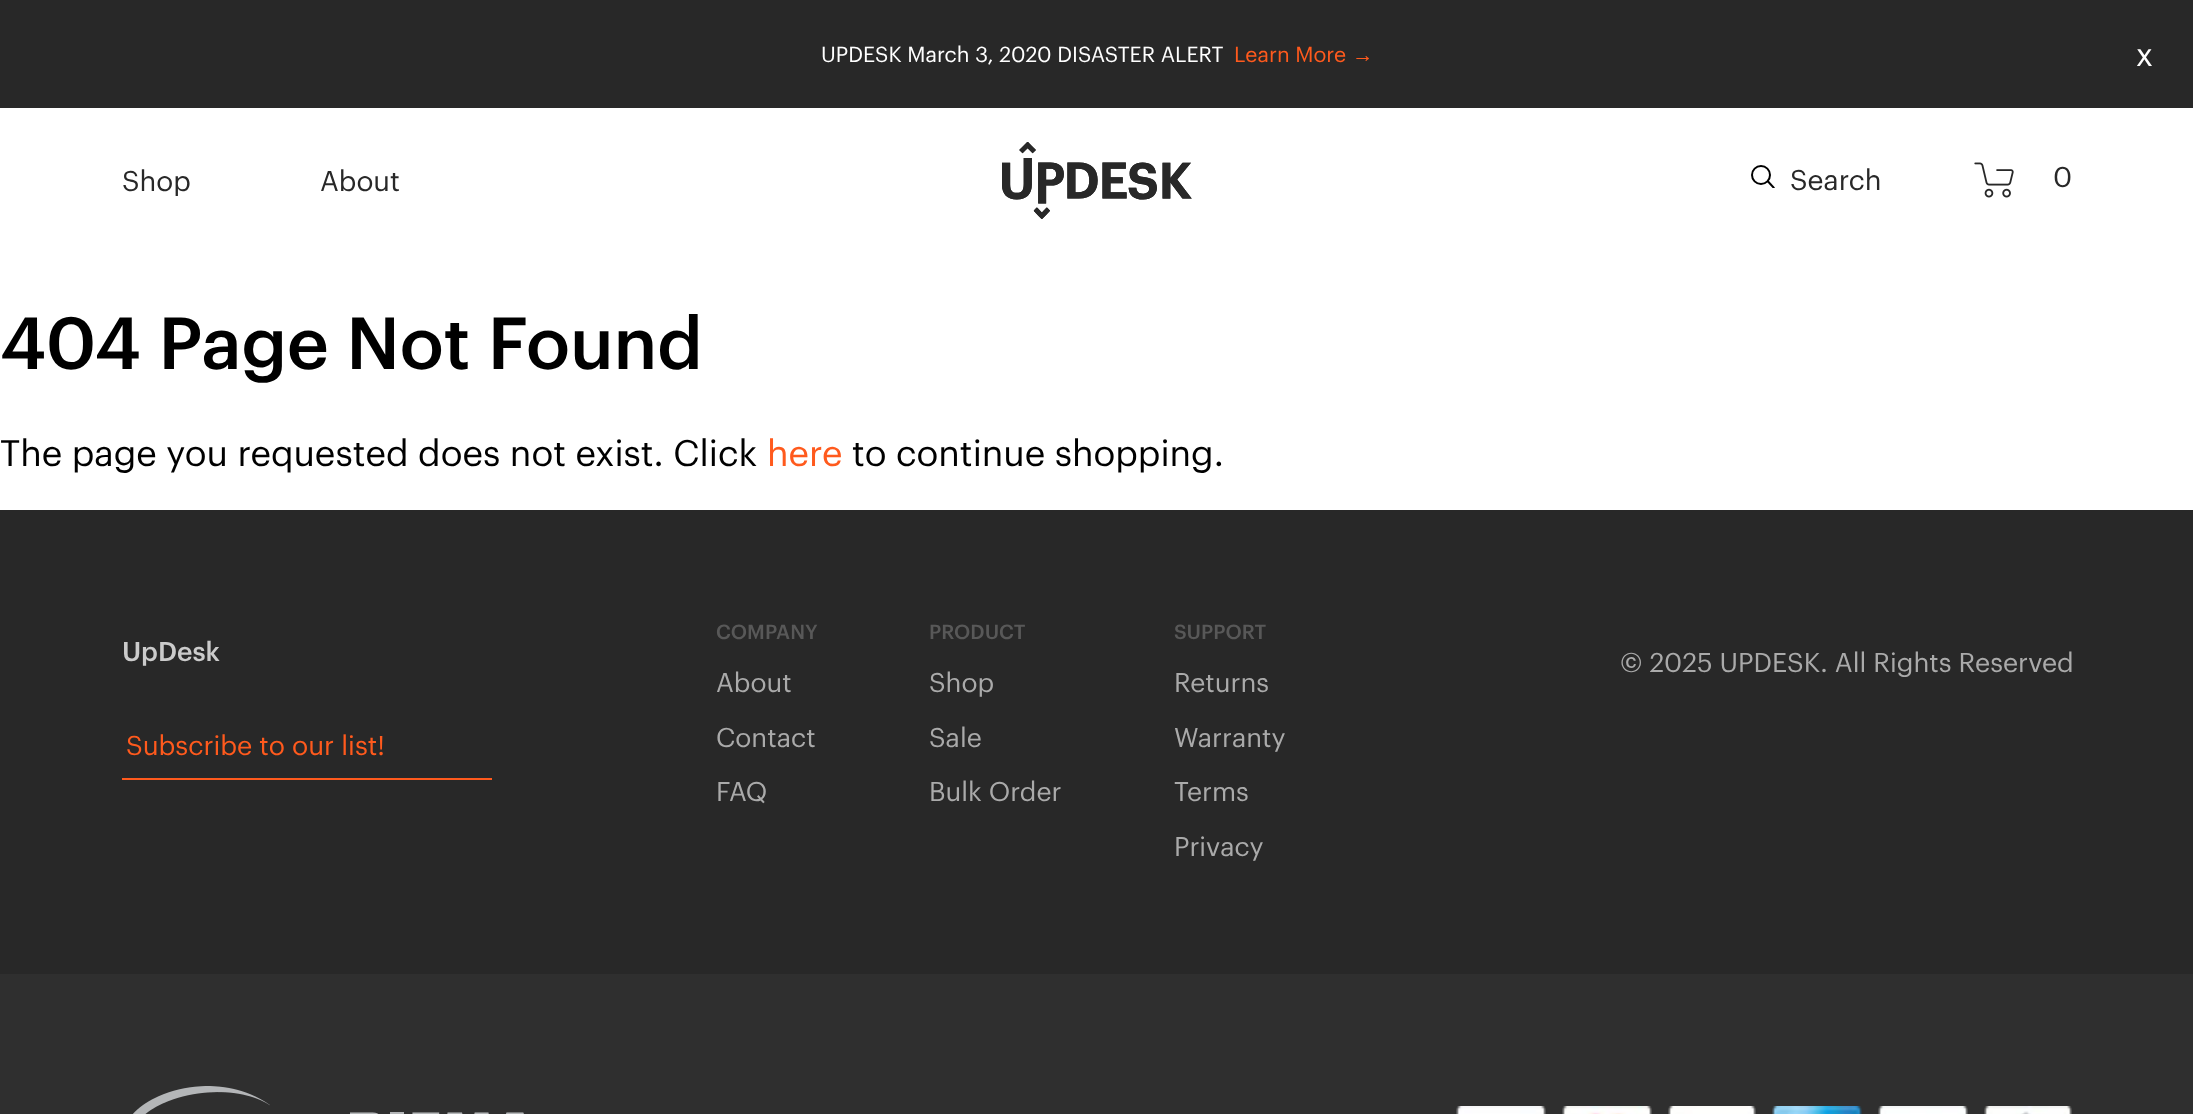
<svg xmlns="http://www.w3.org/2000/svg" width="2193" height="1114">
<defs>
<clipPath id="clip1"><rect x="1750" y="164" width="26" height="24"/></clipPath>
</defs>
<rect width="100%" height="100%" fill="#fff"/>
<rect width="2193" height="108" fill="#282828"/>
<text x="821" y="62" style="font-family:Graphik;font-size:21.3px;fill:#fff">UPDESK March 3, 2020 DISASTER ALERT</text>
<text x="1234" y="62" style="font-family:Graphik;font-size:21.3px;fill:#ff5a1d">Learn More</text>
<text x="1352" y="62" style="font-family:Liberation Sans;font-size:21.3px;fill:#ff5a1d">→</text>
<text x="2136" y="66" style="font-family:Graphik;font-size:32px;fill:#fff">x</text>
<text x="122" y="191" style="font-family:Graphik;font-size:28px;fill:#282828">Shop</text>
<text x="320" y="191" style="font-family:Graphik;font-size:28px;fill:#282828">About</text>
<image x="1002" y="142" width="190" height="77" href="media/1.png"/>
<circle cx="1761" cy="175" r="9" fill="none" stroke="#000" stroke-width="2"/>
<g clip-path="url(#clip1)">
<path d="M1768.5 182l5 5.5" fill="none" stroke="#000" stroke-width="2" stroke-linecap="square"/>
</g>
<text x="1790" y="190" style="font-family:Graphik;font-size:28px;fill:#282828">Search</text>
<image x="1974" y="162" width="40" height="36" href="media/2.png"/>
<text x="2053" y="187" style="font-family:Graphik;font-size:28px;fill:#282828">0</text>
<text x="0" y="369" style="font-family:Graphik;font-size:72px;font-weight:500;fill:#000">404 Page Not Found</text>
<text x="0" y="466" style="font-family:Graphik;font-size:36px;fill:#000">The page you requested does not exist. Click</text>
<text x="767" y="466" style="font-family:Graphik;font-size:36px;fill:#ff5a1d">here</text>
<text x="852" y="466" style="font-family:Graphik;font-size:36px;fill:#000">to continue shopping.</text>
<rect y="510" width="2193" height="464" fill="#282828"/>
<text x="122" y="661" style="font-family:Graphik;font-size:26.6px;font-weight:500;fill:#cbcbcb">UpDesk</text>
<rect x="122" y="778" width="370" height="2" fill="#ff5a1d"/>
<text x="126" y="755" style="font-family:Graphik;font-size:26.75px;fill:#ff5a1d">Subscribe to our list!</text>
<text x="716" y="639" style="font-family:Graphik;font-size:20px;font-weight:500;fill:#585858">COMPANY</text>
<text x="716" y="692" style="font-family:Graphik;font-size:26.5px;fill:#aaa">About</text>
<text x="716" y="747" style="font-family:Graphik;font-size:26.5px;fill:#aaa">Contact</text>
<text x="716" y="801" style="font-family:Graphik;font-size:26.5px;fill:#aaa">FAQ</text>
<text x="929" y="639" style="font-family:Graphik;font-size:20px;font-weight:500;fill:#585858">PRODUCT</text>
<text x="929" y="692" style="font-family:Graphik;font-size:26.5px;fill:#aaa">Shop</text>
<text x="929" y="747" style="font-family:Graphik;font-size:26.5px;fill:#aaa">Sale</text>
<text x="929" y="801" style="font-family:Graphik;font-size:26.5px;fill:#aaa">Bulk Order</text>
<text x="1174" y="639" style="font-family:Graphik;font-size:20px;font-weight:500;fill:#585858">SUPPORT</text>
<text x="1174" y="692" style="font-family:Graphik;font-size:26.5px;fill:#aaa">Returns</text>
<text x="1174" y="747" style="font-family:Graphik;font-size:26.5px;fill:#aaa">Warranty</text>
<text x="1174" y="801" style="font-family:Graphik;font-size:26.5px;fill:#aaa">Terms</text>
<text x="1174" y="856" style="font-family:Graphik;font-size:26.5px;fill:#aaa">Privacy</text>
<text x="1620" y="672" style="font-family:Graphik;font-size:26.6px;fill:#aaa">© 2025 UPDESK. All Rights Reserved</text>
<rect y="974" width="2193" height="140" fill="#2f2f2f"/>
<image x="133" y="1086" width="137" height="28" href="media/3.png"/>
<image x="350" y="1112" width="174" height="2" href="media/4.png"/>
<image x="1456" y="1106" width="90" height="8" href="media/5.png"/>
<image x="1562" y="1106" width="90" height="8" href="media/6.png"/>
<image x="1668" y="1106" width="88" height="8" href="media/7.png"/>
<image x="1772" y="1106" width="90" height="8" href="media/8.png"/>
<image x="1878" y="1106" width="90" height="8" href="media/9.png"/>
<image x="1984" y="1106" width="88" height="8" href="media/10.png"/>
</svg>
